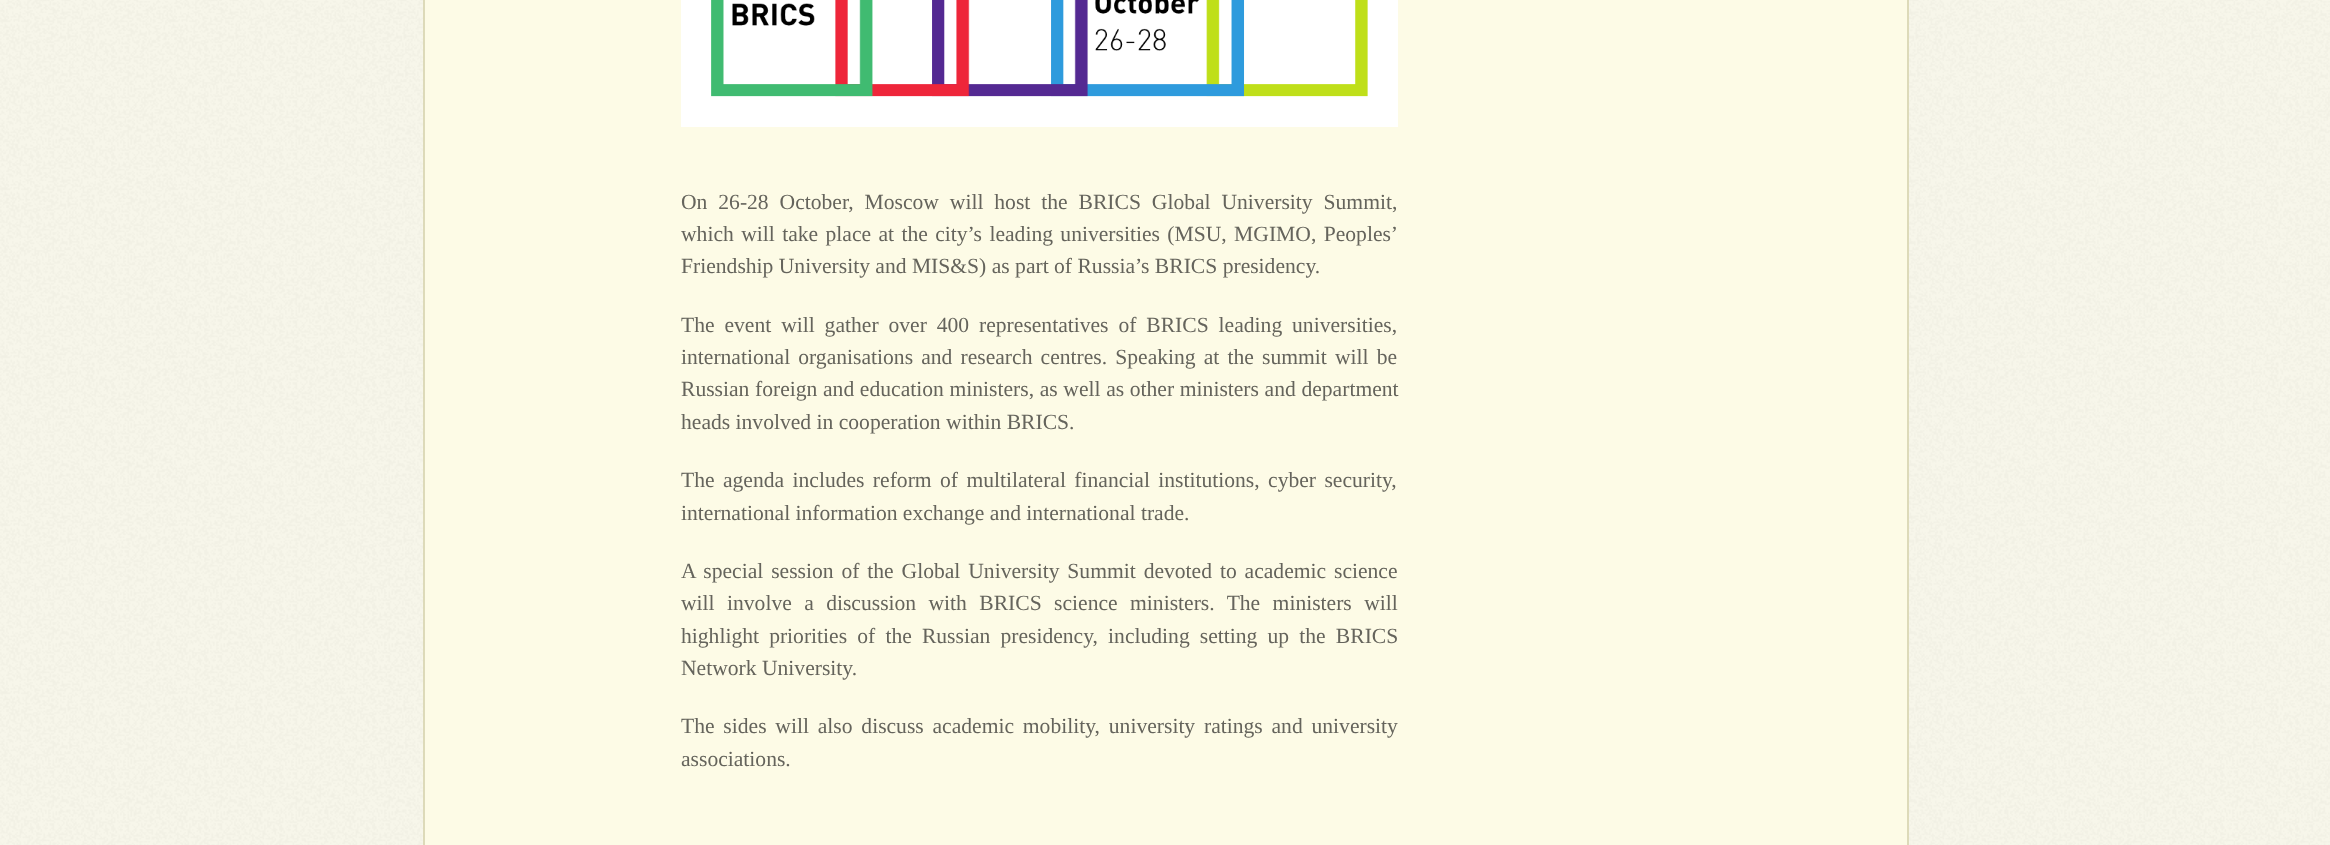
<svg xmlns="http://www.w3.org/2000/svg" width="2330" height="845">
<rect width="100%" height="100%" fill="#f8f7eb"/>
<image x="0" y="0" width="2330" height="845" href="media/1.png"/>
<rect x="425" width="1482" height="845" fill="#fdfbe6"/>
<rect x="1907" width="2" height="845" fill="#dddab9"/>
<rect x="423" width="2" height="845" fill="#dddab9"/>
<image x="681" y="0" width="717" height="127" href="media/2.png"/>
<text x="681" y="209" word-spacing="5.5" style="font-family:Liberation Serif;font-size:21.6px;fill:#65645c">On 26-28 October, Moscow will host the BRICS Global University Summit,</text>
<text x="681" y="241" word-spacing="2" style="font-family:Liberation Serif;font-size:21.6px;fill:#65645c">which will take place at the city’s leading universities (MSU, MGIMO, Peoples’</text>
<text x="681" y="273" style="font-family:Liberation Serif;font-size:21.6px;fill:#65645c">Friendship University and MIS&amp;S) as part of Russia’s BRICS presidency.</text>
<text x="681" y="332" word-spacing="4.5" style="font-family:Liberation Serif;font-size:21.6px;fill:#65645c">The event will gather over 400 representatives of BRICS leading universities,</text>
<text x="681" y="364" word-spacing="2.75" style="font-family:Liberation Serif;font-size:21.6px;fill:#65645c">international organisations and research centres. Speaking at the summit will be</text>
<text x="681" y="396" word-spacing="0.25" style="font-family:Liberation Serif;font-size:21.6px;fill:#65645c">Russian foreign and education ministers, as well as other ministers and department</text>
<text x="681" y="429" style="font-family:Liberation Serif;font-size:21.6px;fill:#65645c">heads involved in cooperation within BRICS.</text>
<text x="681" y="487" word-spacing="3" style="font-family:Liberation Serif;font-size:21.6px;fill:#65645c">The agenda includes reform of multilateral financial institutions, cyber security,</text>
<text x="681" y="520" style="font-family:Liberation Serif;font-size:21.6px;fill:#65645c">international information exchange and international trade.</text>
<text x="681" y="578" word-spacing="2.5" style="font-family:Liberation Serif;font-size:21.6px;fill:#65645c">A special session of the Global University Summit devoted to academic science</text>
<text x="681" y="610" word-spacing="7" style="font-family:Liberation Serif;font-size:21.6px;fill:#65645c">will involve a discussion with BRICS science ministers. The ministers will</text>
<text x="681" y="643" word-spacing="4.75" style="font-family:Liberation Serif;font-size:21.6px;fill:#65645c">highlight priorities of the Russian presidency, including setting up the BRICS</text>
<text x="681" y="675" style="font-family:Liberation Serif;font-size:21.6px;fill:#65645c">Network University.</text>
<text x="681" y="733" word-spacing="3.4" style="font-family:Liberation Serif;font-size:21.6px;fill:#65645c">The sides will also discuss academic mobility, university ratings and university</text>
<text x="681" y="766" style="font-family:Liberation Serif;font-size:21.6px;fill:#65645c">associations.</text>
</svg>
